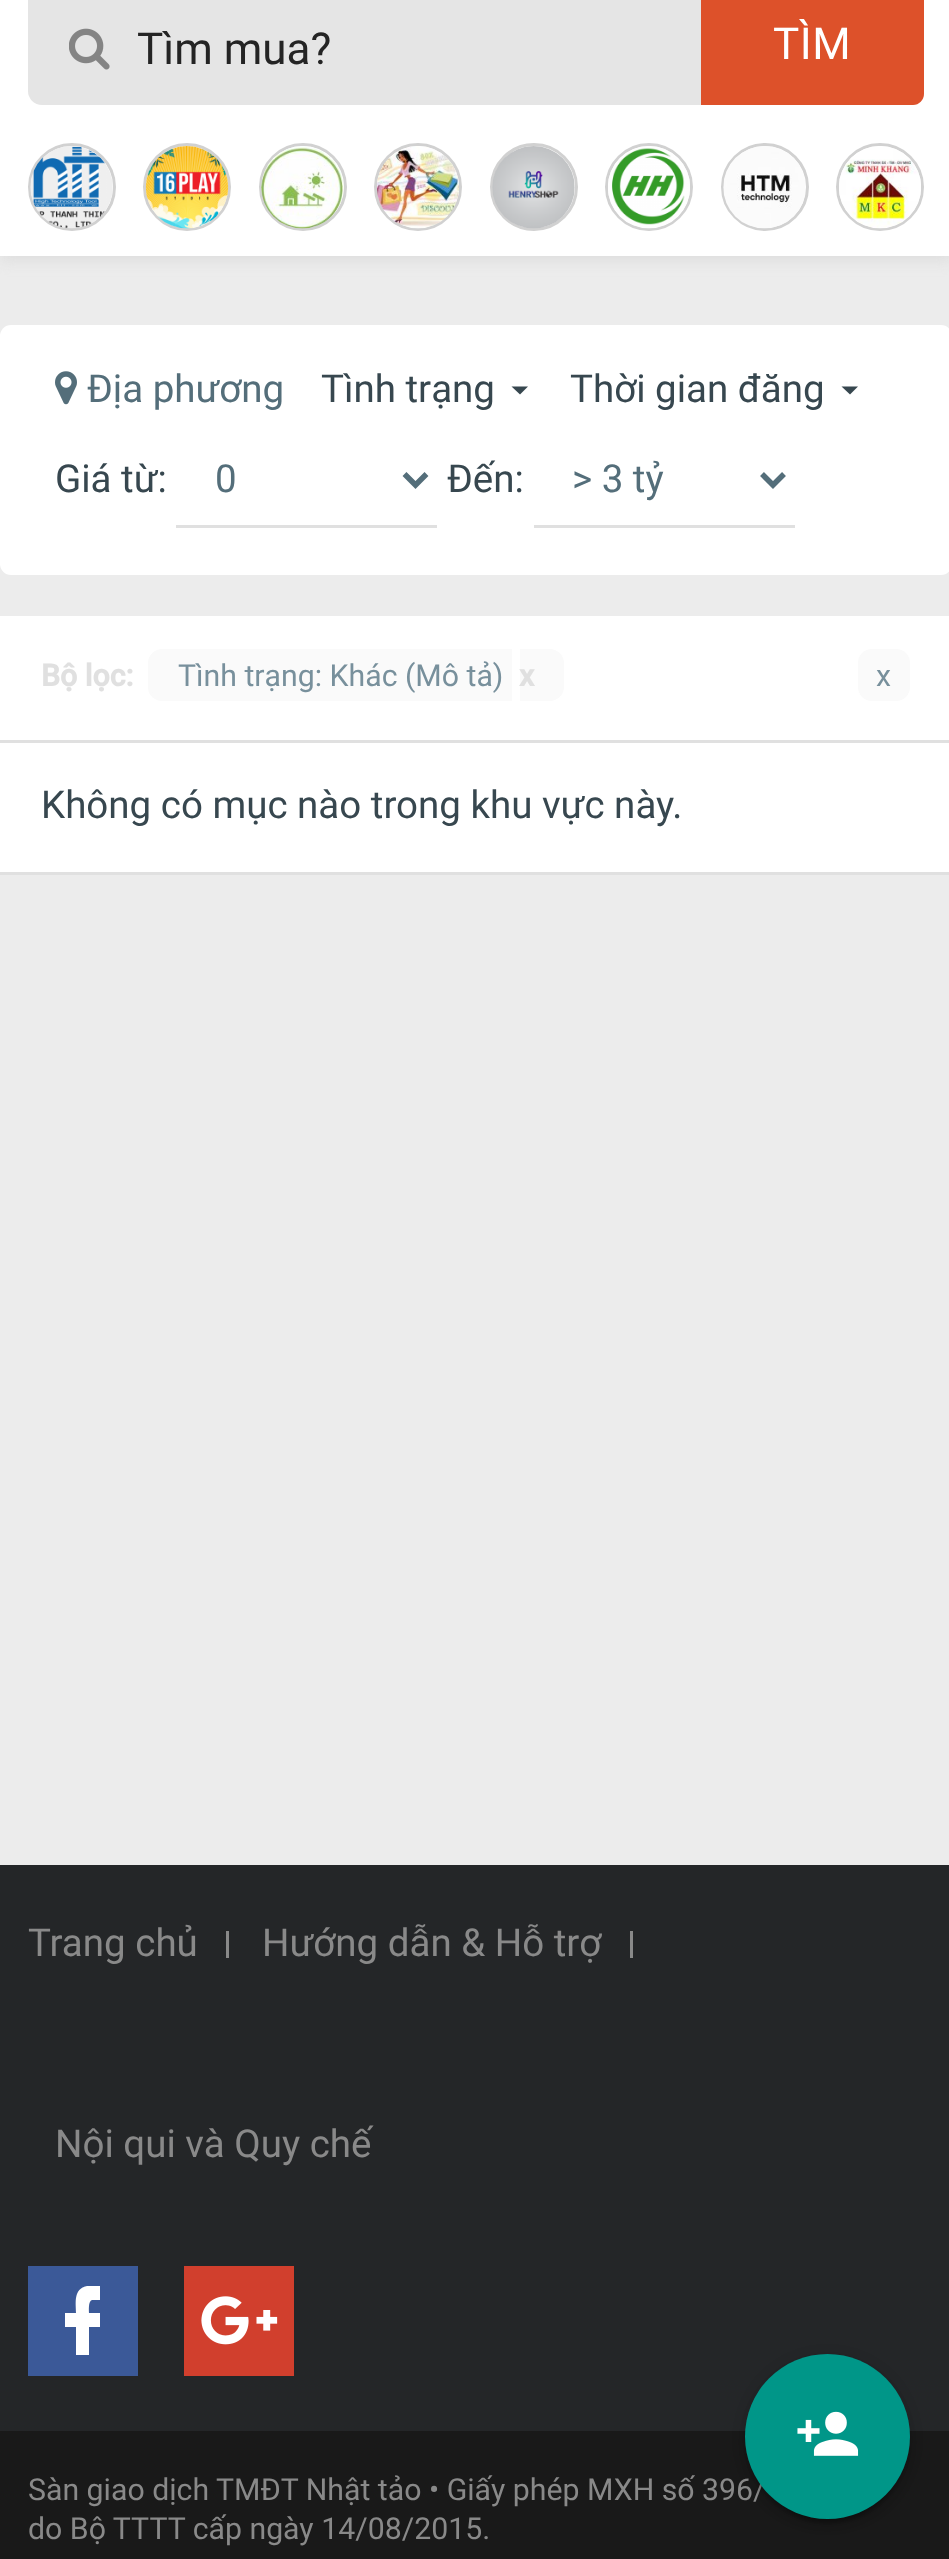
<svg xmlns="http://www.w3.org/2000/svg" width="949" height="2559">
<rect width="100%" height="100%" fill="#ececec"/>
<rect y="-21" width="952" height="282" fill="#d2d2d280" filter="blur(7px)"/>
<rect width="949" height="256" fill="#fff"/>
<rect x="28" y="-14" width="896" height="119" rx="14" fill="#e5e5e5"/>
<image x="69" y="28" width="41" height="42" href="media/1.png"/>
<text x="137" y="64" style="font-family:Roboto;font-size:44px;fill:#242424">Tìm mua?</text>
<path d="M701-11h212c6 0 11 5 11 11v94c0 6-5 11-11 11h-212z" fill="#dd512a"/>
<text x="773" y="59" style="font-family:Roboto;font-size:44px;letter-spacing:0.5px;fill:#fff">TÌM</text>
<circle cx="72" cy="187" r="42.5" fill="none" stroke="#d1d1d1" stroke-width="3"/>
<image x="30" y="146" width="83" height="83" href="media/2.png"/>
<circle cx="187" cy="187" r="42.5" fill="none" stroke="#d1d1d1" stroke-width="3"/>
<image x="145" y="146" width="84" height="83" href="media/3.png"/>
<circle cx="303" cy="187" r="42.5" fill="none" stroke="#d1d1d1" stroke-width="3"/>
<image x="261" y="146" width="83" height="83" href="media/4.png"/>
<circle cx="418" cy="187" r="42.5" fill="none" stroke="#d1d1d1" stroke-width="3"/>
<image x="377" y="146" width="82" height="83" href="media/5.png"/>
<circle cx="534" cy="187" r="42.5" fill="none" stroke="#d1d1d1" stroke-width="3"/>
<image x="492" y="146" width="83" height="83" href="media/6.png"/>
<circle cx="649" cy="187" r="42.5" fill="none" stroke="#d1d1d1" stroke-width="3"/>
<image x="608" y="146" width="82" height="83" href="media/7.png"/>
<circle cx="765" cy="187" r="42.5" fill="none" stroke="#d1d1d1" stroke-width="3"/>
<image x="723" y="146" width="82" height="83" href="media/8.png"/>
<circle cx="880" cy="187" r="42.5" fill="none" stroke="#d1d1d1" stroke-width="3"/>
<image x="839" y="146" width="82" height="83" href="media/9.png"/>
<rect y="325" width="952" height="250" rx="11" fill="#fff"/>
<image x="55" y="371" width="22" height="34" href="media/10.png"/>
<text x="87" y="402" style="font-family:Roboto;font-size:38.5px;fill:#546e7a">Địa phương</text>
<text x="321" y="402" style="font-family:Roboto;font-size:38.5px;fill:#37474f">Tình trạng</text>
<path d="M511.5 386.5l8.5 8l8-8z" fill="#37474f"/>
<text x="570" y="402" style="font-family:Roboto;font-size:38.5px;fill:#37474f">Thời gian đăng</text>
<path d="M841.5 386.5l8.5 8l8-8z" fill="#37474f"/>
<text x="55" y="492" style="font-family:Roboto;font-size:38.5px;fill:#37474f">Giá từ:</text>
<rect x="176" y="525" width="261" height="3" fill="#e0e0e0"/>
<path d="M404.5 474l11 11l11-11" fill="none" stroke="#546e7a" stroke-width="5.5"/>
<text x="215" y="492" style="font-family:Roboto;font-size:38.5px;fill:#546e7a">0</text>
<text x="447" y="492" style="font-family:Roboto;font-size:38.5px;fill:#37474f">Đến:</text>
<rect x="534" y="525" width="261" height="3" fill="#e0e0e0"/>
<path d="M762 474l11 11l11-11" fill="none" stroke="#546e7a" stroke-width="5.5"/>
<text x="572" y="492" style="font-family:Roboto;font-size:38.5px;fill:#546e7a">&gt; 3 tỷ</text>
<rect y="616" width="949" height="124" fill="#fff"/>
<rect y="740" width="949" height="3" fill="#e0e0e0"/>
<text x="41" y="686" style="font-family:Roboto;font-size:30.25px;font-weight:bold;fill:#e0e0e0">Bộ lọc:</text>
<path d="M163 649h349v52h-349c-7.5 0-14-6.5-14-14v-24c0-7.5 6.5-14 14-14z" fill="#fafafa"/>
<path d="M162 649h350v52h-350c-7 0-14-6-14-13v-25c0-8 7-14 14-14zm0 3h350v46h-350c-6 0-11-4-11-10v-25c0-6 5-11 11-11z" fill="#fafafa" fill-rule="evenodd"/>
<text x="178" y="686" style="font-family:Roboto;font-size:30.25px;fill:#78909c">Tình trạng: Khác (Mô tả)</text>
<path d="M520 649h30c7.5 0 14 6.5 14 14v24c0 7.5-6.5 14-14 14h-30z" fill="#fafafa"/>
<text x="519" y="686" style="font-family:Roboto;font-size:30.25px;font-weight:bold;fill:#e0e0e0">x</text>
<rect x="858" y="649" width="52" height="52" rx="14" fill="#fafafa"/>
<text x="876" y="686" style="font-family:Roboto;font-size:30.25px;fill:#78909c">x</text>
<rect y="743" width="949" height="129" fill="#fff"/>
<rect y="872" width="949" height="3" fill="#e0e0e0"/>
<text x="41" y="818" style="font-family:Roboto;font-size:38.5px;fill:#37474f">Không có mục nào trong khu vực này.</text>
<rect y="1865" width="949" height="566" fill="#242628"/>
<text x="28" y="1956" style="font-family:Roboto;font-size:38.5px;fill:#898989">Trang chủ</text>
<rect x="226" y="1931" width="3" height="27" fill="#898989"/>
<text x="262" y="1956" style="font-family:Roboto;font-size:38.5px;fill:#898989">Hướng dẫn &amp; Hỗ trợ</text>
<rect x="630" y="1931" width="3" height="27" fill="#898989"/>
<text x="55" y="2157" style="font-family:Roboto;font-size:38.5px;fill:#898989">Nội qui và Quy chế</text>
<rect x="28" y="2266" width="110" height="110" fill="#3b5998"/>
<path d="M100 2286v14h-8c-4 1-3 11-3 13h11v14h-11v28h-13v-28h-11v-14h11c0-10-3-24 11-27z" fill="#fff"/>
<rect x="184" y="2266" width="110" height="110" fill="#d13f2d"/>
<image x="201" y="2296" width="77" height="49" href="media/11.png"/>
<rect y="2431" width="949" height="128" fill="#191919"/>
<text x="28" y="2500" style="font-family:Roboto;font-size:30.25px;fill:#898989">Sàn giao dịch TMĐT Nhật tảo • Giấy phép MXH số 396/</text>
<text x="28" y="2539" style="font-family:Roboto;font-size:30.25px;fill:#898989">do Bộ TTTT cấp ngày 14/08/2015.</text>
<rect x="745" y="2357" width="165" height="165" rx="82.5" fill="#0000001f" filter="blur(7px)"/>
<rect x="751" y="2368" width="154" height="154" rx="77" fill="#00000033" filter="blur(1.5px)"/>
<rect x="745" y="2360" width="165" height="165" rx="82.5" fill="#00000024" filter="blur(3px)"/>
<circle cx="827.5" cy="2436.5" r="82.5" fill="#009688"/>
<image x="797" y="2411" width="62" height="45" href="media/12.png"/>
</svg>
